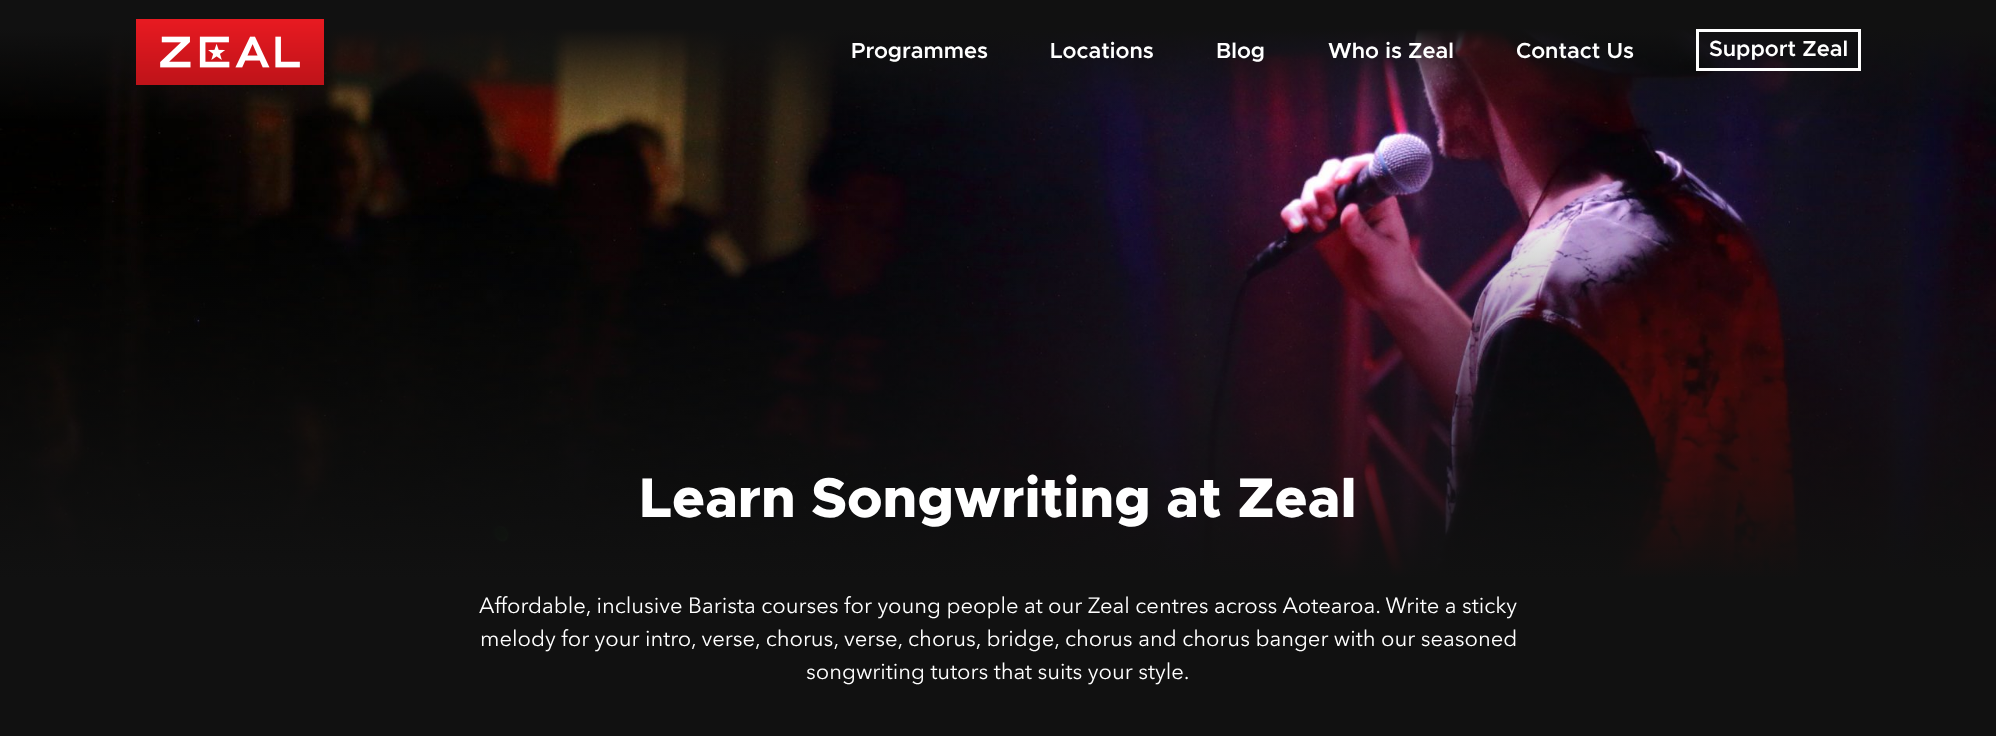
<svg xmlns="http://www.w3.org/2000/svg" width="1996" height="736">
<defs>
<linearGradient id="g1" gradientUnits="userSpaceOnUse" x1="998" y1="0" x2="998" y2="135"><stop offset="0.21" stop-color="#111"/><stop offset="0.9" stop-color="#111" stop-opacity="0"/></linearGradient>
<linearGradient id="g2" gradientUnits="userSpaceOnUse" x1="998" y1="-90" x2="998" y2="579"><stop offset="0.43" stop-color="#111" stop-opacity="0"/><stop offset="1" stop-color="#111"/></linearGradient>
</defs>
<rect width="100%" height="100%" fill="#111"/>
<image x="0" y="29" width="1996" height="548" href="media/2.png"/>
<rect y="29" width="1996" height="90" fill="url(#g1)"/>
<image x="136" y="19" width="188" height="66" href="media/1.png"/>
<text x="851" y="58" style="font-family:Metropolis;font-size:22px;font-weight:600;fill:#fff">Programmes</text>
<text x="1050" y="58" style="font-family:Metropolis;font-size:22px;font-weight:600;fill:#fff">Locations</text>
<text x="1216" y="58" style="font-family:Metropolis;font-size:22px;font-weight:600;fill:#fff">Blog</text>
<text x="1328" y="58" style="font-family:Metropolis;font-size:22px;font-weight:600;fill:#fff">Who is Zeal</text>
<text x="1516" y="58" style="font-family:Metropolis;font-size:22px;font-weight:600;fill:#fff">Contact Us</text>
<rect x="1697.5" y="30.5" width="162" height="39" fill="none" stroke="#fff" stroke-width="3"/>
<text x="1709" y="56" style="font-family:Metropolis;font-size:22px;font-weight:600;fill:#fff">Support Zeal</text>
<rect y="206" width="1996" height="371" fill="url(#g2)"/>
<text x="639" y="517" style="font-family:Metropolis;font-size:56px;font-weight:800;fill:#fff">Learn Songwriting at Zeal</text>
<text x="479" y="613" style="font-family:Avenir Next;font-size:22px;fill:#fff">Affordable, inclusive Barista courses for young people at our Zeal centres across Aotearoa. Write a sticky</text>
<text x="480" y="646" style="font-family:Avenir Next;font-size:22px;fill:#fff">melody for your intro, verse, chorus, verse, chorus, bridge, chorus and chorus banger with our seasoned</text>
<text x="806" y="679" style="font-family:Avenir Next;font-size:22px;fill:#fff">songwriting tutors that suits your style.</text>
</svg>
